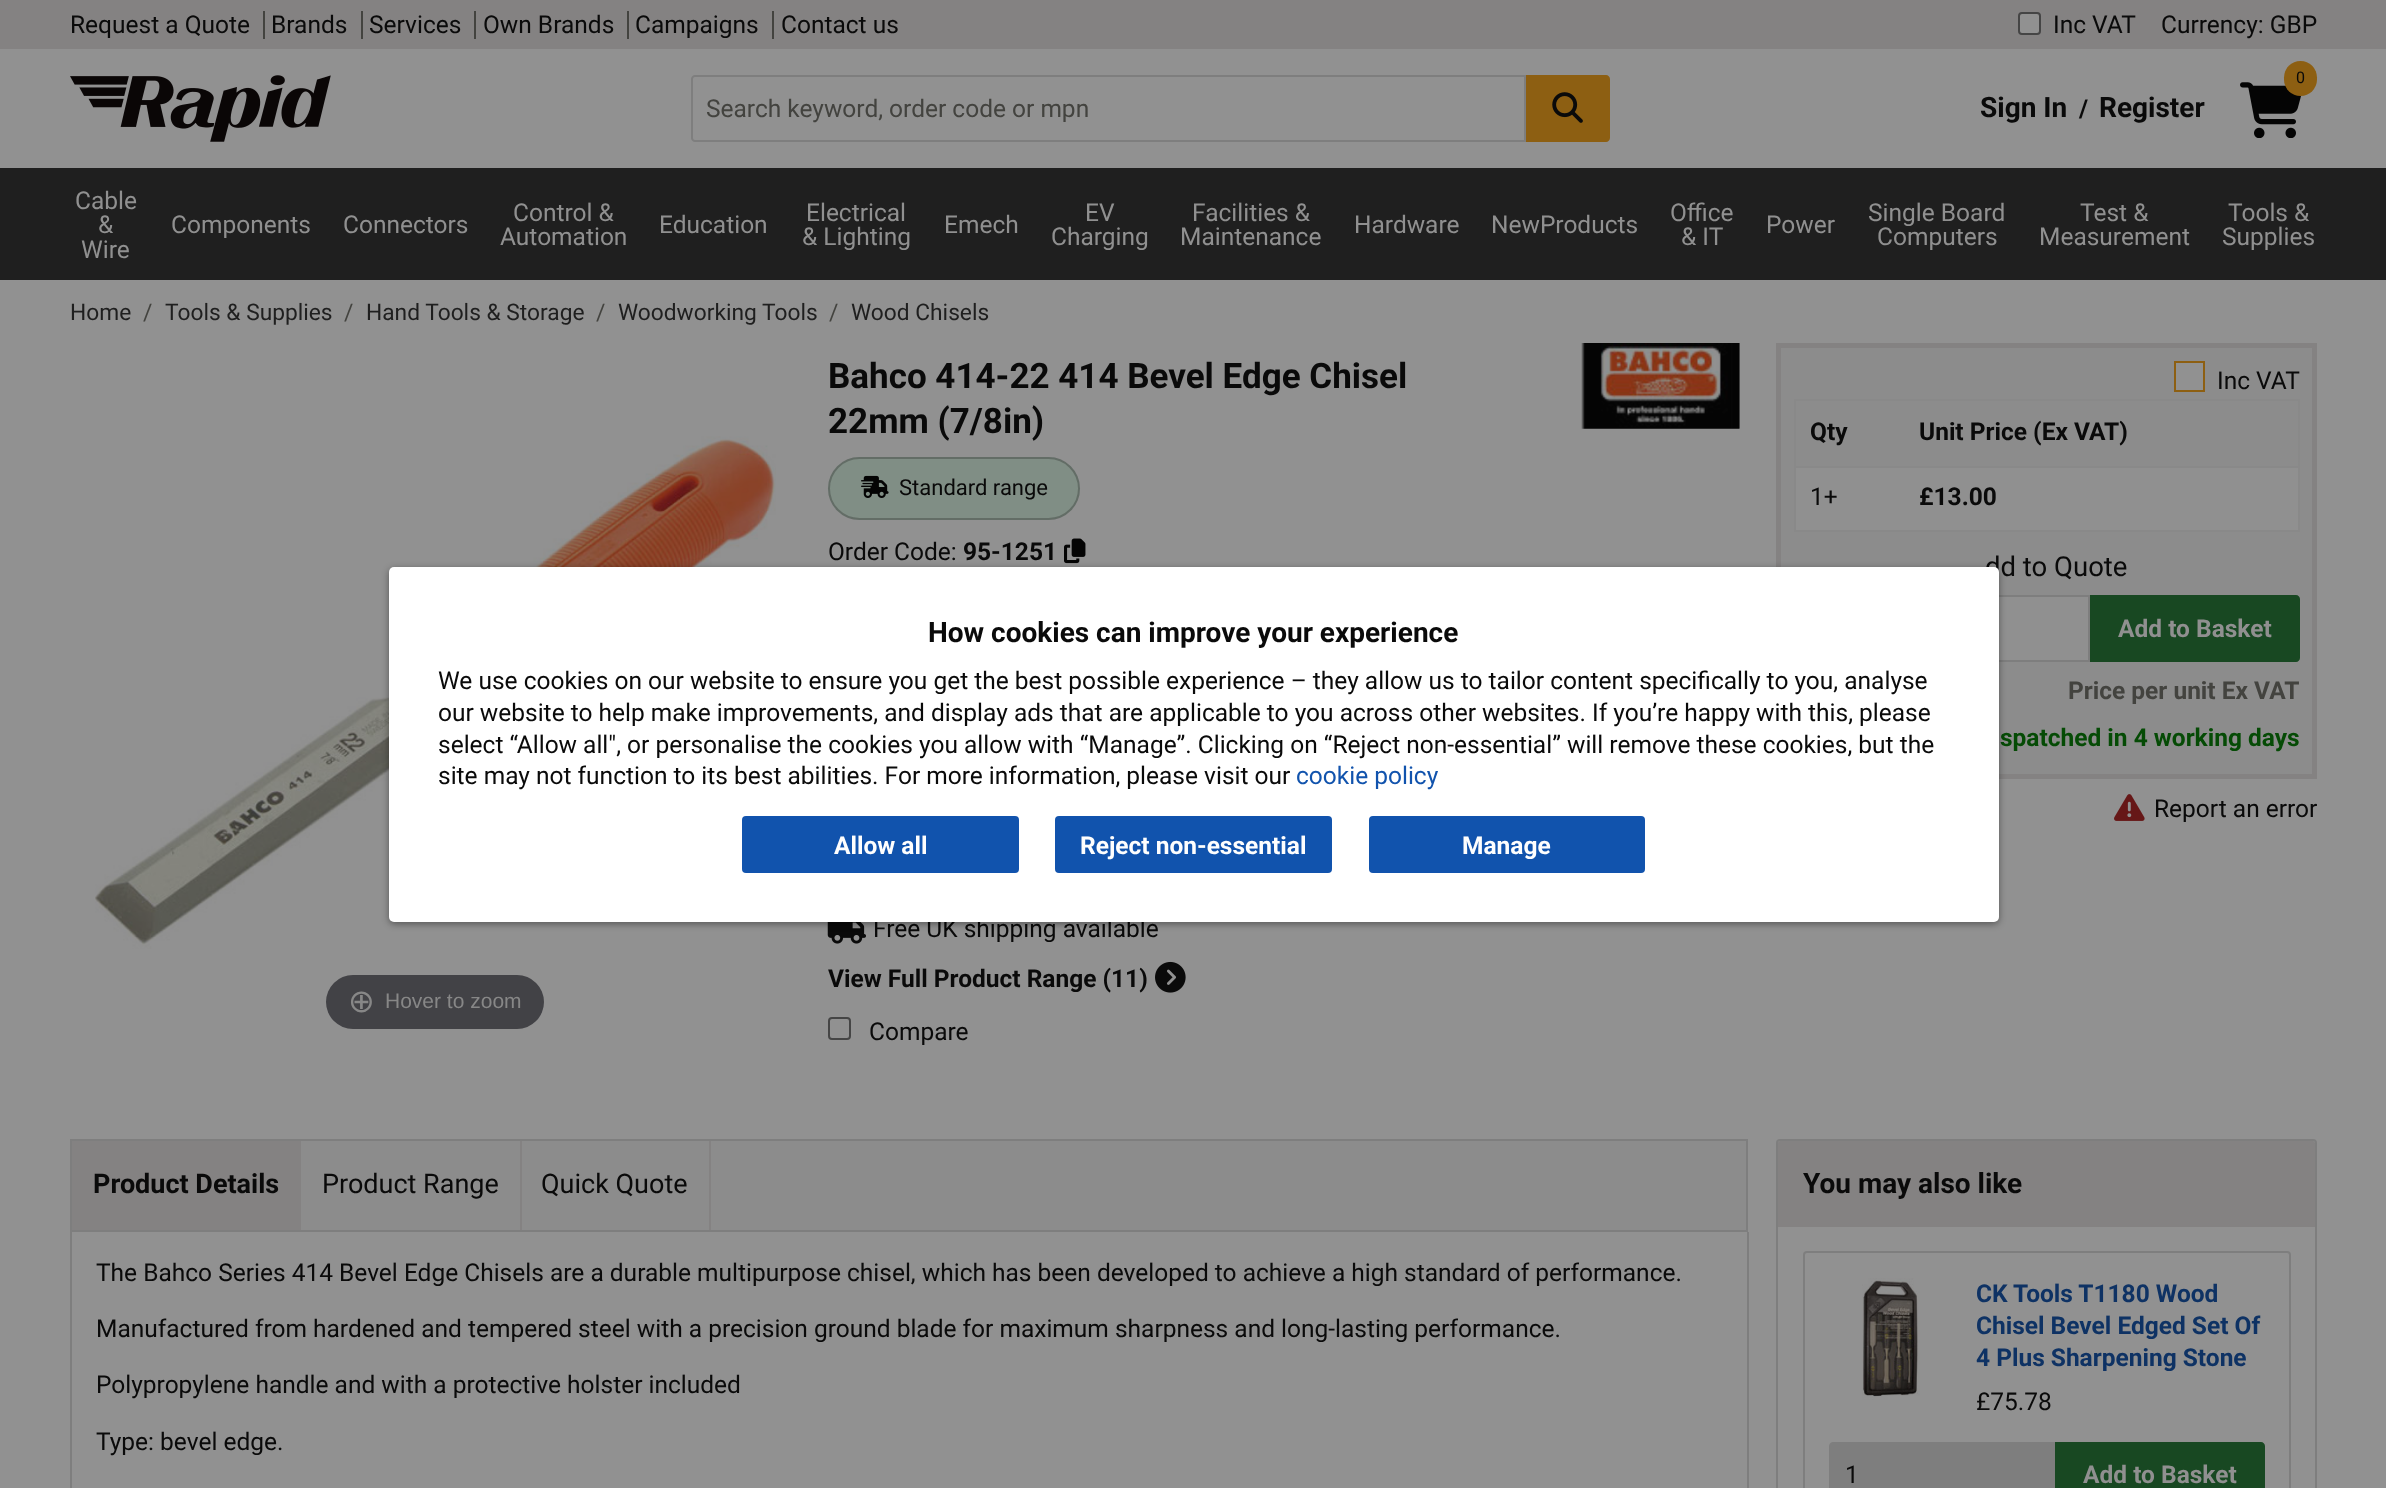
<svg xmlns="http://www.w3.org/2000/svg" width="2386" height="1488">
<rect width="100%" height="100%" fill="#919191"/>
<rect width="2386" height="49" fill="#848282"/>
<text x="70" y="33" style="font-family:Roboto;font-size:24.5px;fill:#0a0a0a">Request a Quote</text>
<rect x="263" y="11" width="2" height="28" fill="#43433f"/>
<text x="271" y="33" style="font-family:Roboto;font-size:24.5px;fill:#0a0a0a">Brands</text>
<rect x="361" y="11" width="2" height="28" fill="#43433f"/>
<text x="369" y="33" style="font-family:Roboto;font-size:24.5px;fill:#0a0a0a">Services</text>
<rect x="474" y="11" width="2" height="28" fill="#43433f"/>
<text x="483" y="33" style="font-family:Roboto;font-size:24.5px;fill:#0a0a0a">Own Brands</text>
<rect x="627" y="11" width="2" height="28" fill="#43433f"/>
<text x="635" y="33" style="font-family:Roboto;font-size:24.5px;fill:#0a0a0a">Campaigns</text>
<rect x="772" y="11" width="2" height="28" fill="#43433f"/>
<text x="781" y="33" style="font-family:Roboto;font-size:24.5px;fill:#0a0a0a">Contact us</text>
<rect x="2019" y="13" width="21" height="21" rx="3" fill="#919191" stroke="#454545" stroke-width="2"/>
<text x="2053" y="33" style="font-family:Roboto;font-size:24.5px;fill:#0a0a0a">Inc VAT</text>
<text x="2161" y="33" style="font-family:Roboto;font-size:24.5px;fill:#0a0a0a">Currency: GBP</text>
<image x="70" y="75" width="261" height="67" href="media/1.png"/>
<path d="M695 76h830v65h-830c-1.5 0-3-1.5-3-3v-59c0-1.5 1.5-3 3-3z" fill="none" stroke="#7e7e7e" stroke-width="2"/>
<text x="706" y="117" style="font-family:Roboto;font-size:24.5px;fill:#43433f">Search keyword, order code or mpn</text>
<path d="M1526 75h80c2 0 4 2 4 4v59c0 2-2 4-4 4h-80z" fill="#8d5f12"/>
<image x="1552" y="92" width="31" height="31" href="media/2.png"/>
<image x="2240" y="82" width="62" height="56" href="media/3.png"/>
<rect x="2284" y="61" width="33" height="35" rx="16.5" fill="#8d5f12"/>
<text x="2296" y="83" style="font-family:Roboto;font-size:16px;fill:#0a0a0a">0</text>
<text x="1980" y="117" style="font-family:Roboto;font-size:28px;font-weight:bold;fill:#0a0a0a">Sign In</text>
<text x="2079" y="117" style="font-family:Roboto;font-size:24.5px;font-weight:bold;fill:#0a0a0a">/</text>
<text x="2099" y="117" style="font-family:Roboto;font-size:28px;font-weight:bold;fill:#0a0a0a">Register</text>
<rect y="168" width="2386" height="112" fill="#1f1f1f"/>
<text x="75" y="209" style="font-family:Roboto;font-size:24.5px;fill:#909090">Cable</text>
<text x="98" y="233" style="font-family:Roboto;font-size:24.5px;fill:#909090">&amp;</text>
<text x="81" y="258" style="font-family:Roboto;font-size:24.5px;fill:#909090">Wire</text>
<text x="171" y="233" style="font-family:Roboto;font-size:24.5px;fill:#909090">Components</text>
<text x="343" y="233" style="font-family:Roboto;font-size:24.5px;fill:#909090">Connectors</text>
<text x="513" y="221" style="font-family:Roboto;font-size:24.5px;fill:#909090">Control &amp;</text>
<text x="500" y="245" style="font-family:Roboto;font-size:24.5px;fill:#909090">Automation</text>
<text x="659" y="233" style="font-family:Roboto;font-size:24.5px;fill:#909090">Education</text>
<text x="806" y="221" style="font-family:Roboto;font-size:24.5px;fill:#909090">Electrical</text>
<text x="802" y="245" style="font-family:Roboto;font-size:24.5px;fill:#909090">&amp; Lighting</text>
<text x="944" y="233" style="font-family:Roboto;font-size:24.5px;fill:#909090">Emech</text>
<text x="1085" y="221" style="font-family:Roboto;font-size:24.5px;fill:#909090">EV</text>
<text x="1051" y="245" style="font-family:Roboto;font-size:24.5px;fill:#909090">Charging</text>
<text x="1192" y="221" style="font-family:Roboto;font-size:24.5px;fill:#909090">Facilities &amp;</text>
<text x="1180" y="245" style="font-family:Roboto;font-size:24.5px;fill:#909090">Maintenance</text>
<text x="1354" y="233" style="font-family:Roboto;font-size:24.5px;fill:#909090">Hardware</text>
<text x="1491" y="233" style="font-family:Roboto;font-size:24.5px;fill:#909090">NewProducts</text>
<text x="1670" y="221" style="font-family:Roboto;font-size:24.5px;fill:#909090">Office</text>
<text x="1681" y="245" style="font-family:Roboto;font-size:24.5px;fill:#909090">&amp; IT</text>
<text x="1766" y="233" style="font-family:Roboto;font-size:24.5px;fill:#909090">Power</text>
<text x="1868" y="221" style="font-family:Roboto;font-size:24.5px;fill:#909090">Single Board</text>
<text x="1877" y="245" style="font-family:Roboto;font-size:24.5px;fill:#909090">Computers</text>
<text x="2080" y="221" style="font-family:Roboto;font-size:24.5px;fill:#909090">Test &amp;</text>
<text x="2039" y="245" style="font-family:Roboto;font-size:24.5px;fill:#909090">Measurement</text>
<text x="2228" y="221" style="font-family:Roboto;font-size:24.5px;fill:#909090">Tools &amp;</text>
<text x="2222" y="245" style="font-family:Roboto;font-size:24.5px;fill:#909090">Supplies</text>
<text x="70" y="320" style="font-family:Roboto;font-size:22.75px;fill:#1f1f1f">Home</text>
<text x="143" y="320" style="font-family:Roboto;font-size:22.75px;fill:#43433f">/</text>
<text x="165" y="320" style="font-family:Roboto;font-size:22.75px;fill:#1f1f1f">Tools &amp; Supplies</text>
<text x="344" y="320" style="font-family:Roboto;font-size:22.75px;fill:#43433f">/</text>
<text x="366" y="320" style="font-family:Roboto;font-size:22.75px;fill:#1f1f1f">Hand Tools &amp; Storage</text>
<text x="596" y="320" style="font-family:Roboto;font-size:22.75px;fill:#43433f">/</text>
<text x="618" y="320" style="font-family:Roboto;font-size:22.75px;fill:#1f1f1f">Woodworking Tools</text>
<text x="829" y="320" style="font-family:Roboto;font-size:22.75px;fill:#43433f">/</text>
<text x="851" y="320" style="font-family:Roboto;font-size:22.75px;fill:#1f1f1f">Wood Chisels</text>
<text x="828" y="388" style="font-family:Roboto;font-size:35px;font-weight:bold;fill:#0a0a0a">Bahco 414-22 414 Bevel Edge Chisel</text>
<text x="828" y="433" style="font-family:Roboto;font-size:35px;font-weight:bold;fill:#0a0a0a">22mm (7/8in)</text>
<image x="1581" y="343" width="159" height="86" href="media/4.png"/>
<rect x="828" y="457" width="252" height="63" rx="31.5" fill="#808e85"/>
<rect x="829" y="458" width="250" height="61" rx="30.5" fill="none" stroke="#0a0a0a40" stroke-width="2"/>
<image x="861" y="475" width="28" height="23" href="media/5.png"/>
<text x="899" y="495" style="font-family:Roboto;font-size:22px;fill:#0a0a0a">Standard range</text>
<text x="828" y="560" style="font-family:Roboto;font-size:24.5px;fill:#0a0a0a">Order Code:</text>
<text x="963" y="560" style="font-family:Roboto;font-size:24.5px;font-weight:bold;fill:#0a0a0a">95-1251</text>
<image x="1064" y="538" width="22" height="26" href="media/6.png"/>
<image x="827" y="922" width="39" height="22" href="media/7.png"/>
<text x="873" y="937" style="font-family:Roboto;font-size:24.5px;fill:#0a0a0a">Free UK shipping available</text>
<text x="828" y="987" style="font-family:Roboto;font-size:24.5px;font-weight:bold;fill:#0a0a0a">View Full Product Range (11)</text>
<image x="1155" y="961" width="31" height="32" href="media/8.png"/>
<rect x="829" y="1018" width="21" height="21" rx="3" fill="none" stroke="#454545" stroke-width="2"/>
<text x="869" y="1040" style="font-family:Roboto;font-size:24.5px;fill:#0a0a0a">Compare</text>
<rect x="1778.5" y="345.5" width="536" height="431" fill="#8c8c8c" stroke="#848282" stroke-width="5"/>
<rect x="2175" y="362" width="29" height="29" fill="#919191" stroke="#8d5f12" stroke-width="2"/>
<text x="2217" y="389" style="font-family:Roboto;font-size:24.5px;fill:#0a0a0a">Inc VAT</text>
<rect x="1794" y="399" width="506" height="2" fill="#898989"/>
<rect x="1794" y="466" width="506" height="2" fill="#898989"/>
<rect x="2298" y="466" width="2" height="66" fill="#898989"/>
<rect x="2298" y="399" width="2" height="68" fill="#898989"/>
<rect x="1794" y="530" width="506" height="2" fill="#898989"/>
<rect x="1794" y="466" width="2" height="66" fill="#898989"/>
<rect x="1794" y="399" width="2" height="68" fill="#898989"/>
<text x="1810" y="440" style="font-family:Roboto;font-size:24.5px;font-weight:bold;fill:#0a0a0a">Qty</text>
<text x="1919" y="440" style="font-family:Roboto;font-size:24.5px;font-weight:bold;fill:#0a0a0a">Unit Price (Ex VAT)</text>
<rect x="1796" y="468" width="502" height="62" fill="#909090"/>
<text x="1810" y="505" style="font-family:Roboto;font-size:24.5px;fill:#0a0a0a">1+</text>
<text x="1919" y="505" style="font-family:Roboto;font-size:24.5px;font-weight:bold;fill:#0a0a0a">£13.00</text>
<text x="1985" y="576" style="font-family:Roboto;font-size:27.5px;fill:#0a0a0a">dd to Quote</text>
<rect x="1999" y="597" width="89" height="63" fill="#909090"/>
<rect x="1795" y="596" width="294" height="65" fill="none" stroke="#7e7e7e" stroke-width="2"/>
<path d="M2090 595h206c2 0 4 2 4 4v59c0 2-2 4-4 4h-206z" fill="#184822"/>
<text x="2118" y="637" style="font-family:Roboto;font-size:24.5px;font-weight:bold;fill:#909090">Add to Basket</text>
<text x="2068" y="699" style="font-family:Roboto;font-size:24.5px;font-weight:bold;fill:#43433f">Price per unit Ex VAT</text>
<text x="2000" y="746" style="font-family:Roboto;font-size:24.5px;font-weight:bold;fill:#054b05">spatched in 4 working days</text>
<image x="2114" y="794" width="31" height="27" href="media/9.png"/>
<text x="2154" y="817" style="font-family:Roboto;font-size:24.5px;fill:#0a0a0a">Report an error</text>
<image x="95" y="436" width="681" height="513" href="media/10.png"/>
<rect x="326" y="975" width="218" height="54" rx="27" fill="#424246"/>
<text x="348" y="1012" style="font-family:DejaVu Sans;font-size:32px;fill:#878787">⊕</text>
<text x="385" y="1008" style="font-family:Liberation Sans;font-size:21px;fill:#878787">Hover to zoom</text>
<rect x="301" y="1141" width="1445" height="89" fill="#8c8c8c"/>
<rect x="71" y="1140" width="1676" height="91" fill="none" stroke="#7e7e7e" stroke-width="2"/>
<rect x="72" y="1141" width="229" height="89" fill="#848282"/>
<text x="93" y="1193" style="font-family:Roboto;font-size:27px;font-weight:bold;fill:#0a0a0a">Product Details</text>
<rect x="520" y="1141" width="2" height="89" fill="#848282"/>
<text x="322" y="1193" style="font-family:Roboto;font-size:27px;fill:#0a0a0a">Product Range</text>
<rect x="709" y="1141" width="2" height="89" fill="#848282"/>
<text x="541" y="1193" style="font-family:Roboto;font-size:27px;fill:#0a0a0a">Quick Quote</text>
<rect x="1747" y="1232" width="2" height="256" fill="#7e7e7e"/>
<rect x="70" y="1232" width="2" height="256" fill="#7e7e7e"/>
<text x="96" y="1281" style="font-family:Roboto;font-size:24.5px;fill:#0a0a0a">The Bahco Series 414 Bevel Edge Chisels are a durable multipurpose chisel, which has been developed to achieve a high standard of performance.</text>
<text x="96" y="1337" style="font-family:Roboto;font-size:24.5px;fill:#0a0a0a">Manufactured from hardened and tempered steel with a precision ground blade for maximum sharpness and long-lasting performance.</text>
<text x="96" y="1393" style="font-family:Roboto;font-size:24.5px;fill:#0a0a0a">Polypropylene handle and with a protective holster included</text>
<text x="96" y="1450" style="font-family:Roboto;font-size:24.5px;fill:#0a0a0a">Type: bevel edge.</text>
<rect x="1777" y="1140" width="539" height="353" rx="3" fill="none" stroke="#7e7e7e" stroke-width="2"/>
<path d="M1780.5 1141h532c1.5 0 2.5 1 2.5 2.5v83.5h-537v-83.5c0-1.5 1-2.5 2.5-2.5z" fill="#848282"/>
<text x="1803" y="1193" style="font-family:Roboto;font-size:28px;font-weight:bold;fill:#0a0a0a">You may also like</text>
<rect x="1804" y="1252" width="486" height="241" rx="3" fill="none" stroke="#7e7e7e" stroke-width="2"/>
<image x="1862" y="1278" width="58" height="122" href="media/11.png"/>
<text x="1976" y="1302" style="font-family:Roboto;font-size:24.5px;font-weight:bold;fill:#0e3264">CK Tools T1180 Wood</text>
<text x="1976" y="1334" style="font-family:Roboto;font-size:24.5px;font-weight:bold;fill:#0e3264">Chisel Bevel Edged Set Of</text>
<text x="1976" y="1366" style="font-family:Roboto;font-size:24.5px;font-weight:bold;fill:#0e3264">4 Plus Sharpening Stone</text>
<text x="1976" y="1410" style="font-family:Roboto;font-size:24.5px;fill:#0a0a0a">£75.78</text>
<path d="M1833 1442h222v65h-222c-2 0-4-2-4-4v-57c0-2 2-4 4-4z" fill="#7e7e7e"/>
<text x="1845" y="1483" style="font-family:Roboto;font-size:24.5px;fill:#0a0a0a">1</text>
<path d="M2055 1442h206c2 0 4 2 4 4v42c0 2-2 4-4 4h-206z" fill="#184822"/>
<text x="2083" y="1483" style="font-family:Roboto;font-size:24.5px;font-weight:bold;fill:#909090">Add to Basket</text>
<rect x="389" y="569" width="1610" height="355" rx="5" fill="#00000066" filter="blur(3.5px)"/>
<rect x="389" y="567" width="1610" height="355" rx="5" fill="#fff"/>
<text x="928" y="642" style="font-family:Roboto;font-size:28px;font-weight:bold;fill:#0a0a0a">How cookies can improve your experience</text>
<text x="438" y="689" style="font-family:Roboto;font-size:24.5px;fill:#0a0a0a">We use cookies on our website to ensure you get the best possible experience – they allow us to tailor content specifically to you, analyse</text>
<text x="438" y="721" style="font-family:Roboto;font-size:24.5px;fill:#0a0a0a">our website to help make improvements, and display ads that are applicable to you across other websites. If you’re happy with this, please</text>
<text x="438" y="753" style="font-family:Roboto;font-size:24.5px;fill:#0a0a0a">select “Allow all", or personalise the cookies you allow with “Manage”. Clicking on “Reject non-essential” will remove these cookies, but the</text>
<text x="438" y="784" style="font-family:Roboto;font-size:24.5px;fill:#0a0a0a">site may not function to its best abilities. For more information, please visit our</text>
<text x="1296" y="784" style="font-family:Roboto;font-size:24.5px;fill:#1153ad">cookie policy</text>
<rect x="742" y="816" width="277" height="57" rx="4" fill="#1153ad"/>
<text x="834" y="854" style="font-family:Roboto;font-size:24.5px;font-weight:bold;fill:#fefefe">Allow all</text>
<rect x="1055" y="816" width="277" height="57" rx="4" fill="#1153ad"/>
<text x="1080" y="854" style="font-family:Roboto;font-size:24.5px;font-weight:bold;fill:#fefefe">Reject non-essential</text>
<rect x="1369" y="816" width="276" height="57" rx="4" fill="#1153ad"/>
<text x="1462" y="854" style="font-family:Roboto;font-size:24.5px;font-weight:bold;fill:#fefefe">Manage</text>
</svg>
